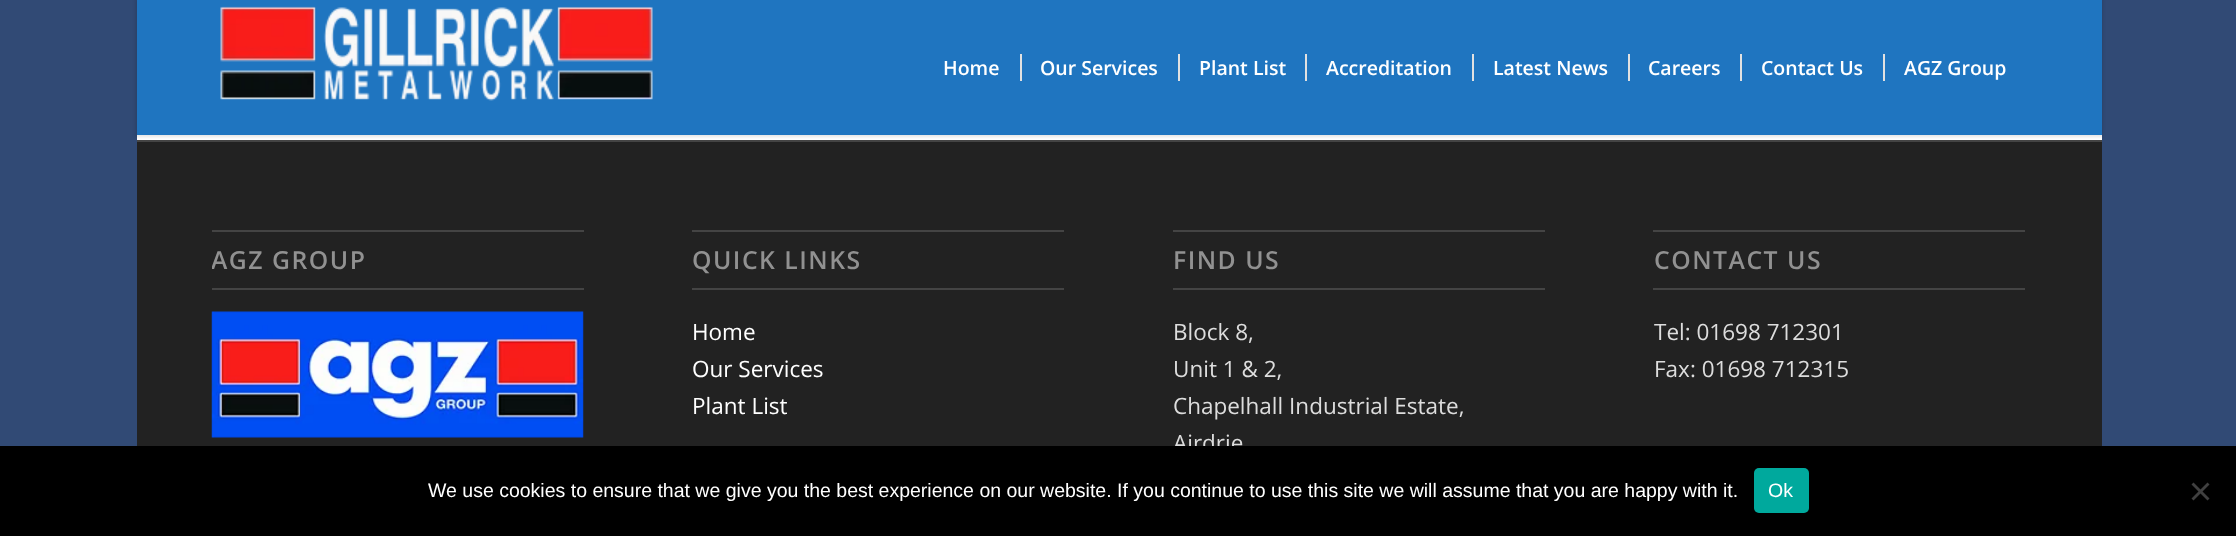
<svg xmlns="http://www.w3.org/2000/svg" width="2236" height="536">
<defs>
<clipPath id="clip1"><rect x="212" y="209" width="372" height="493"/></clipPath>
</defs>
<rect width="100%" height="100%" fill="#314a75"/>
<rect x="137" y="135" width="1965" height="5" fill="#fff"/>
<rect x="137" y="142" width="1965" height="304" fill="#222"/>
<rect x="137" y="140" width="1965" height="2" fill="#444"/>
<rect x="135" y="-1" width="1968" height="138" fill="#0000001a" filter="blur(1.5px)"/>
<rect x="137" width="1965" height="135" fill="#1f75c0"/>
<image x="220" y="6" width="433" height="95" href="media/1.png"/>
<text x="943" y="75" style="font-family:Open Sans;font-size:19.5px;font-weight:600;fill:#fff">Home</text>
<text x="1040" y="75" style="font-family:Open Sans;font-size:19.5px;font-weight:600;fill:#fff">Our Services</text>
<rect x="1020" y="54" width="2" height="27" fill="#e1e1e1"/>
<text x="1199" y="75" style="font-family:Open Sans;font-size:19.5px;font-weight:600;fill:#fff">Plant List</text>
<rect x="1178" y="54" width="2" height="27" fill="#e1e1e1"/>
<text x="1326" y="75" style="font-family:Open Sans;font-size:19.5px;font-weight:600;fill:#fff">Accreditation</text>
<rect x="1305" y="54" width="2" height="27" fill="#e1e1e1"/>
<text x="1493" y="75" style="font-family:Open Sans;font-size:19.5px;font-weight:600;fill:#fff">Latest News</text>
<rect x="1472" y="54" width="2" height="27" fill="#e1e1e1"/>
<text x="1648" y="75" style="font-family:Open Sans;font-size:19.5px;font-weight:600;fill:#fff">Careers</text>
<rect x="1628" y="54" width="2" height="27" fill="#e1e1e1"/>
<text x="1761" y="75" style="font-family:Open Sans;font-size:19.5px;font-weight:600;fill:#fff">Contact Us</text>
<rect x="1740" y="54" width="2" height="27" fill="#e1e1e1"/>
<text x="1904" y="75" style="font-family:Open Sans;font-size:19.5px;font-weight:600;fill:#fff">AGZ Group</text>
<rect x="1883" y="54" width="2" height="27" fill="#e1e1e1"/>
<rect x="212" y="230" width="372" height="2" fill="#444"/>
<rect x="212" y="288" width="372" height="2" fill="#444"/>
<g clip-path="url(#clip1)">
<text x="211" y="269" style="font-family:Open Sans;font-size:24.75px;font-weight:600;letter-spacing:1.5px;fill:#919191">AGZ GROUP</text>
</g>
<image x="211" y="311" width="373" height="127" href="media/2.png"/>
<rect x="692" y="230" width="372" height="2" fill="#444"/>
<rect x="692" y="288" width="372" height="2" fill="#444"/>
<text x="692" y="269" style="font-family:Open Sans;font-size:24.75px;font-weight:600;letter-spacing:1.5px;fill:#919191">QUICK LINKS</text>
<text x="692" y="340" style="font-family:Open Sans;font-size:22.5px;fill:#fff">Home</text>
<text x="692" y="377" style="font-family:Open Sans;font-size:22.5px;fill:#fff">Our Services</text>
<text x="692" y="414" style="font-family:Open Sans;font-size:22.5px;fill:#fff">Plant List</text>
<rect x="1173" y="230" width="372" height="2" fill="#444"/>
<rect x="1173" y="288" width="372" height="2" fill="#444"/>
<text x="1173" y="269" style="font-family:Open Sans;font-size:24.75px;font-weight:600;letter-spacing:1.5px;fill:#919191">FIND US</text>
<text x="1173" y="340" style="font-family:Open Sans;font-size:22.5px;fill:#ddd">Block 8,</text>
<text x="1173" y="377" style="font-family:Open Sans;font-size:22.5px;fill:#ddd">Unit 1 &amp; 2,</text>
<text x="1173" y="414" style="font-family:Open Sans;font-size:22.5px;fill:#ddd">Chapelhall Industrial Estate,</text>
<text x="1173" y="451" style="font-family:Open Sans;font-size:22.5px;fill:#ddd">Airdrie</text>
<rect x="1653" y="230" width="372" height="2" fill="#444"/>
<rect x="1653" y="288" width="372" height="2" fill="#444"/>
<text x="1654" y="269" style="font-family:Open Sans;font-size:24.75px;font-weight:600;letter-spacing:1.5px;fill:#919191">CONTACT US</text>
<text x="1654" y="340" style="font-family:Open Sans;font-size:22.5px;fill:#ddd">Tel: 01698 712301</text>
<text x="1654" y="377" style="font-family:Open Sans;font-size:22.5px;fill:#ddd">Fax: 01698 712315</text>
<rect y="446" width="2236" height="90" fill="#000"/>
<text x="428" y="497" style="font-family:Liberation Sans;font-size:19.5px;fill:#fff">We use cookies to ensure that we give you the best experience on our website. If you continue to use this site we will assume that you are happy with it.</text>
<rect x="1754" y="468" width="55" height="45" rx="5" fill="#00a99d"/>
<text x="1768" y="497" style="font-family:Liberation Sans;font-size:19.5px;fill:#fff">Ok</text>
<path d="M2207.5 482.5l2 2l-16 16l-2-2z" fill="#404040"/>
<path d="M2191.5 484.5l2-2l16 16l-2 2z" fill="#404040"/>
</svg>
